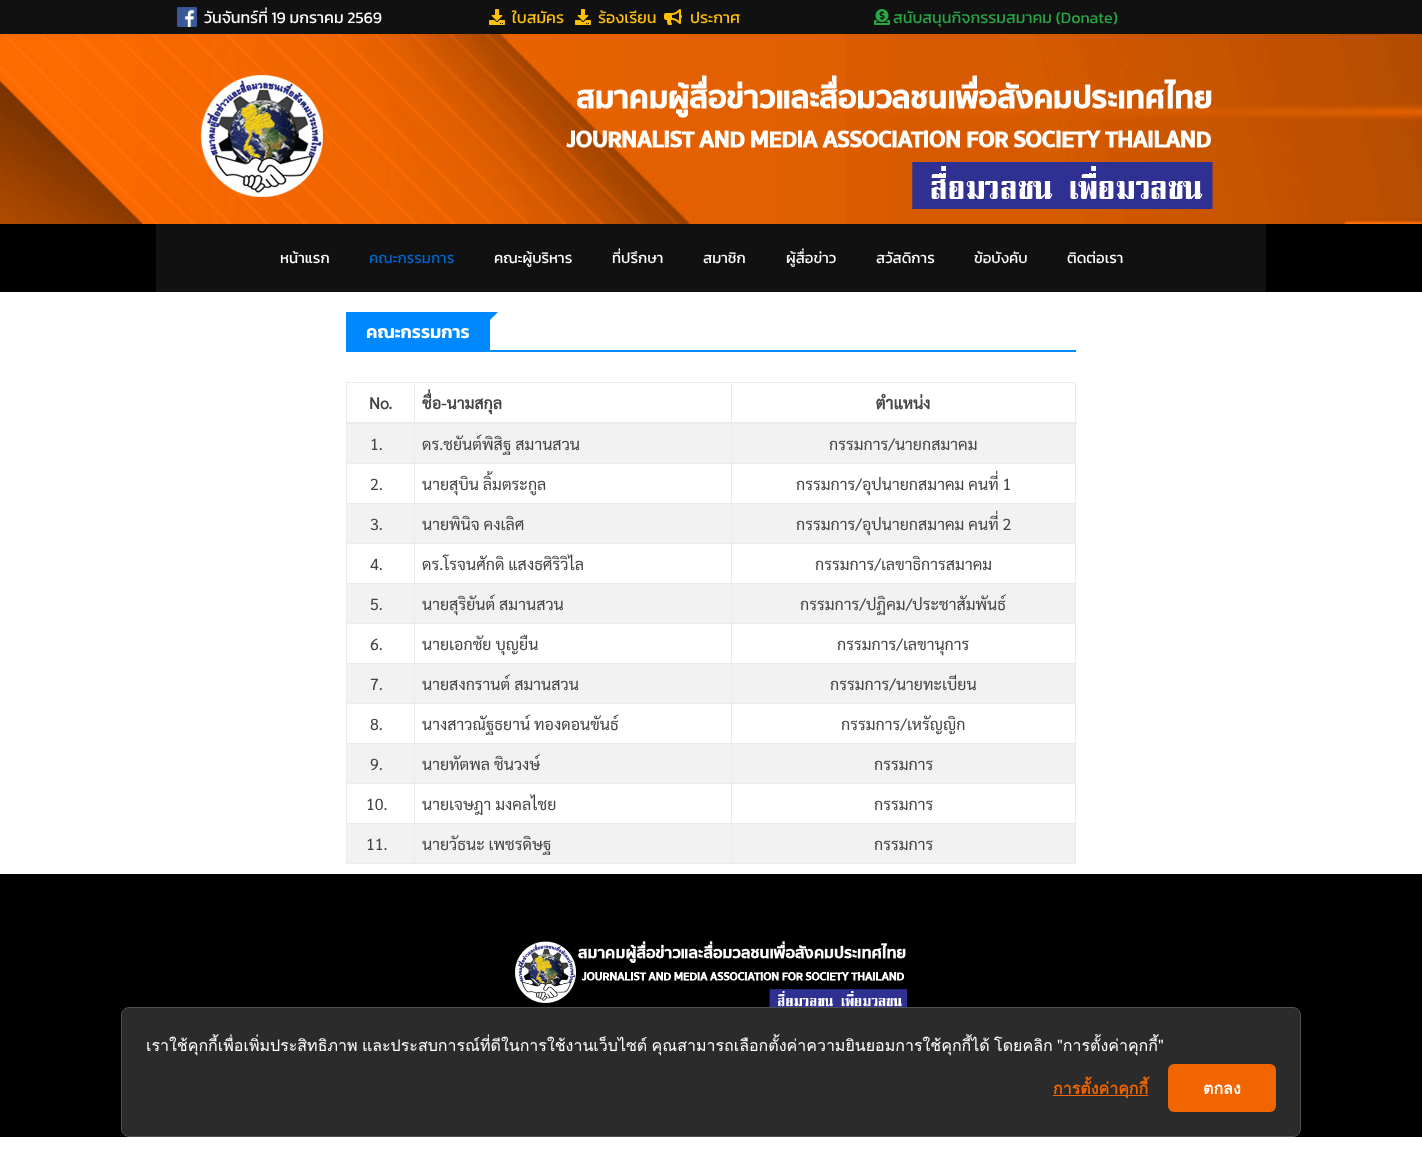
<svg xmlns="http://www.w3.org/2000/svg" width="1422" height="1153">
<rect width="100%" height="100%" fill="#fff"/>
<rect width="1422" height="34" fill="#111"/>
<image x="177" y="7" width="20" height="20" href="media/1.png"/>
<text x="204" y="23" style="font-family:Kanit;font-size:16px;fill:#fff">วันจันทร์ที่ 19 มกราคม 2569</text>
<image x="489" y="9" width="16" height="16" href="media/2.png"/>
<text x="512" y="23" style="font-family:Kanit;font-size:16px;fill:#ffc107">ใบสมัคร</text>
<image x="575" y="9" width="16" height="16" href="media/2.png"/>
<text x="598" y="23" style="font-family:Kanit;font-size:16px;fill:#ffc107">ร้องเรียน</text>
<image x="664" y="9" width="18" height="16" href="media/3.png"/>
<text x="690" y="23" style="font-family:Kanit;font-size:16px;fill:#ffc107">ประกาศ</text>
<image x="874" y="9" width="16" height="16" href="media/4.png"/>
<text x="893" y="23" style="font-family:Kanit;font-size:16px;fill:#28a745">สนับสนุนกิจกรรมสมาคม (Donate)</text>
<image x="0" y="34" width="1422" height="190" href="media/5.png"/>
<image x="201" y="75" width="1012" height="134" href="media/6.png"/>
<rect y="224" width="1422" height="68" fill="#000"/>
<rect x="156" y="224" width="1110" height="68" fill="#111"/>
<text x="280" y="263" style="font-family:Kanit;font-size:15px;fill:#fff">หน้าแรก</text>
<text x="369" y="263" style="font-family:Kanit;font-size:15px;fill:#06c">คณะกรรมการ</text>
<text x="494" y="263" style="font-family:Kanit;font-size:15px;fill:#fff">คณะผู้บริหาร</text>
<text x="612" y="263" style="font-family:Kanit;font-size:15px;fill:#fff">ที่ปรึกษา</text>
<text x="703" y="263" style="font-family:Kanit;font-size:15px;fill:#fff">สมาชิก</text>
<text x="786" y="263" style="font-family:Kanit;font-size:15px;fill:#fff">ผู้สื่อข่าว</text>
<text x="876" y="263" style="font-family:Kanit;font-size:15px;fill:#fff">สวัสดิการ</text>
<text x="974" y="263" style="font-family:Kanit;font-size:15px;fill:#fff">ข้อบังคับ</text>
<text x="1067" y="263" style="font-family:Kanit;font-size:15px;fill:#fff">ติดต่อเรา</text>
<rect x="346" y="312" width="144" height="38" fill="#0089ff"/>
<path d="M490 312h8l-8 8z" fill="#0089ff"/>
<text x="366" y="338" style="font-family:Kanit;font-size:18px;font-weight:600;fill:#fff">คณะกรรมการ</text>
<rect x="346" y="350" width="730" height="2" fill="#0089ff"/>
<rect x="346" y="382" width="730" height="1" fill="#e9ecef"/>
<rect x="1075" y="382" width="1" height="482" fill="#e9ecef"/>
<rect x="346" y="863" width="730" height="1" fill="#e9ecef"/>
<rect x="346" y="382" width="1" height="482" fill="#e9ecef"/>
<text x="369" y="409" style="font-family:Sarabun;font-size:16px;font-weight:bold;fill:#444">No.</text>
<text x="422" y="409" style="font-family:Sarabun;font-size:16px;font-weight:bold;fill:#444">ชื่อ-นามสกุล</text>
<rect x="347" y="424" width="728" height="39" fill="#f2f2f2"/>
<rect x="731" y="463" width="345" height="1" fill="#e9ecef"/>
<rect x="731" y="503" width="345" height="1" fill="#e9ecef"/>
<rect x="347" y="504" width="728" height="39" fill="#f2f2f2"/>
<rect x="731" y="543" width="345" height="1" fill="#e9ecef"/>
<rect x="731" y="583" width="345" height="1" fill="#e9ecef"/>
<rect x="347" y="584" width="728" height="39" fill="#f2f2f2"/>
<rect x="731" y="623" width="345" height="1" fill="#e9ecef"/>
<rect x="731" y="663" width="345" height="1" fill="#e9ecef"/>
<rect x="347" y="664" width="728" height="39" fill="#f2f2f2"/>
<rect x="731" y="703" width="345" height="1" fill="#e9ecef"/>
<rect x="731" y="743" width="345" height="1" fill="#e9ecef"/>
<rect x="347" y="744" width="728" height="39" fill="#f2f2f2"/>
<rect x="731" y="783" width="345" height="1" fill="#e9ecef"/>
<rect x="731" y="823" width="345" height="1" fill="#e9ecef"/>
<rect x="347" y="824" width="728" height="39" fill="#f2f2f2"/>
<rect x="731" y="823" width="1" height="41" fill="#e9ecef"/>
<rect x="414" y="823" width="318" height="1" fill="#e9ecef"/>
<rect x="731" y="783" width="1" height="41" fill="#e9ecef"/>
<rect x="414" y="783" width="318" height="1" fill="#e9ecef"/>
<rect x="731" y="743" width="1" height="41" fill="#e9ecef"/>
<rect x="414" y="743" width="318" height="1" fill="#e9ecef"/>
<rect x="731" y="703" width="1" height="41" fill="#e9ecef"/>
<rect x="414" y="703" width="318" height="1" fill="#e9ecef"/>
<rect x="731" y="663" width="1" height="41" fill="#e9ecef"/>
<rect x="414" y="663" width="318" height="1" fill="#e9ecef"/>
<rect x="731" y="623" width="1" height="41" fill="#e9ecef"/>
<rect x="414" y="623" width="318" height="1" fill="#e9ecef"/>
<rect x="731" y="583" width="1" height="41" fill="#e9ecef"/>
<rect x="414" y="583" width="318" height="1" fill="#e9ecef"/>
<rect x="731" y="543" width="1" height="41" fill="#e9ecef"/>
<rect x="414" y="543" width="318" height="1" fill="#e9ecef"/>
<rect x="731" y="503" width="1" height="41" fill="#e9ecef"/>
<rect x="414" y="503" width="318" height="1" fill="#e9ecef"/>
<rect x="731" y="463" width="1" height="41" fill="#e9ecef"/>
<rect x="414" y="463" width="318" height="1" fill="#e9ecef"/>
<rect x="414" y="823" width="1" height="41" fill="#e9ecef"/>
<rect x="346" y="823" width="69" height="1" fill="#e9ecef"/>
<rect x="414" y="783" width="1" height="41" fill="#e9ecef"/>
<rect x="346" y="783" width="69" height="1" fill="#e9ecef"/>
<rect x="414" y="743" width="1" height="41" fill="#e9ecef"/>
<rect x="346" y="743" width="69" height="1" fill="#e9ecef"/>
<rect x="414" y="703" width="1" height="41" fill="#e9ecef"/>
<rect x="346" y="703" width="69" height="1" fill="#e9ecef"/>
<rect x="414" y="663" width="1" height="41" fill="#e9ecef"/>
<rect x="346" y="663" width="69" height="1" fill="#e9ecef"/>
<rect x="414" y="623" width="1" height="41" fill="#e9ecef"/>
<rect x="346" y="623" width="69" height="1" fill="#e9ecef"/>
<rect x="414" y="583" width="1" height="41" fill="#e9ecef"/>
<rect x="346" y="583" width="69" height="1" fill="#e9ecef"/>
<rect x="414" y="543" width="1" height="41" fill="#e9ecef"/>
<rect x="346" y="543" width="69" height="1" fill="#e9ecef"/>
<rect x="414" y="503" width="1" height="41" fill="#e9ecef"/>
<rect x="346" y="503" width="69" height="1" fill="#e9ecef"/>
<rect x="414" y="463" width="1" height="41" fill="#e9ecef"/>
<rect x="346" y="463" width="69" height="1" fill="#e9ecef"/>
<rect x="414" y="382" width="1" height="82" fill="#e9ecef"/>
<rect x="731" y="382" width="1" height="82" fill="#e9ecef"/>
<rect x="346" y="422" width="731" height="2" fill="#e9ecef"/>
<text x="876" y="409" style="font-family:Sarabun;font-size:16px;font-weight:bold;fill:#444">ตำแหน่ง</text>
<text x="370" y="450" style="font-family:Sarabun;font-size:16px;fill:#444">1.</text>
<text x="422" y="450" style="font-family:Sarabun;font-size:16px;fill:#444">ดร.ชยันต์พิสิฐ สมานสวน</text>
<text x="829" y="450" style="font-family:Sarabun;font-size:16px;fill:#444">กรรมการ/นายกสมาคม</text>
<text x="370" y="490" style="font-family:Sarabun;font-size:16px;fill:#444">2.</text>
<text x="422" y="490" style="font-family:Sarabun;font-size:16px;fill:#444">นายสุบิน ลิ้มตระกูล</text>
<text x="796" y="490" style="font-family:Sarabun;font-size:16px;fill:#444">กรรมการ/อุปนายกสมาคม คนที่ 1</text>
<text x="370" y="530" style="font-family:Sarabun;font-size:16px;fill:#444">3.</text>
<text x="422" y="530" style="font-family:Sarabun;font-size:16px;fill:#444">นายพินิจ คงเลิศ</text>
<text x="796" y="530" style="font-family:Sarabun;font-size:16px;fill:#444">กรรมการ/อุปนายกสมาคม คนที่ 2</text>
<text x="370" y="570" style="font-family:Sarabun;font-size:16px;fill:#444">4.</text>
<text x="422" y="570" style="font-family:Sarabun;font-size:16px;fill:#444">ดร.โรจนศักดิ แสงธศิริวิไล</text>
<text x="815" y="570" style="font-family:Sarabun;font-size:16px;fill:#444">กรรมการ/เลขาธิการสมาคม</text>
<text x="370" y="610" style="font-family:Sarabun;font-size:16px;fill:#444">5.</text>
<text x="422" y="610" style="font-family:Sarabun;font-size:16px;fill:#444">นายสุริยันต์ สมานสวน</text>
<text x="800" y="610" style="font-family:Sarabun;font-size:16px;fill:#444">กรรมการ/ปฏิคม/ประชาสัมพันธ์</text>
<text x="370" y="650" style="font-family:Sarabun;font-size:16px;fill:#444">6.</text>
<text x="422" y="650" style="font-family:Sarabun;font-size:16px;fill:#444">นายเอกชัย บุญยืน</text>
<text x="837" y="650" style="font-family:Sarabun;font-size:16px;fill:#444">กรรมการ/เลขานุการ</text>
<text x="370" y="690" style="font-family:Sarabun;font-size:16px;fill:#444">7.</text>
<text x="422" y="690" style="font-family:Sarabun;font-size:16px;fill:#444">นายสงกรานต์ สมานสวน</text>
<text x="830" y="690" style="font-family:Sarabun;font-size:16px;fill:#444">กรรมการ/นายทะเบียน</text>
<text x="370" y="730" style="font-family:Sarabun;font-size:16px;fill:#444">8.</text>
<text x="422" y="730" style="font-family:Sarabun;font-size:16px;fill:#444">นางสาวณัฐธยาน์ ทองดอนขันธ์</text>
<text x="841" y="730" style="font-family:Sarabun;font-size:16px;fill:#444">กรรมการ/เหรัญญิก</text>
<text x="370" y="770" style="font-family:Sarabun;font-size:16px;fill:#444">9.</text>
<text x="422" y="770" style="font-family:Sarabun;font-size:16px;fill:#444">นายทัตพล ชินวงษ์</text>
<text x="874" y="770" style="font-family:Sarabun;font-size:16px;fill:#444">กรรมการ</text>
<text x="366" y="810" style="font-family:Sarabun;font-size:16px;fill:#444">10.</text>
<text x="422" y="810" style="font-family:Sarabun;font-size:16px;fill:#444">นายเจษฎา มงคลไชย</text>
<text x="874" y="810" style="font-family:Sarabun;font-size:16px;fill:#444">กรรมการ</text>
<text x="366" y="850" style="font-family:Sarabun;font-size:16px;fill:#444">11.</text>
<text x="422" y="850" style="font-family:Sarabun;font-size:16px;fill:#444">นายวัธนะ เพชรดิษฐ</text>
<text x="874" y="850" style="font-family:Sarabun;font-size:16px;fill:#444">กรรมการ</text>
<rect y="874" width="1422" height="263" fill="#000"/>
<image x="515" y="941" width="392" height="66" href="media/7.png"/>
<rect x="121.5" y="1007.5" width="1179" height="129" rx="7.5" fill="#2b2b2b" stroke="#505050"/>
<text x="146" y="1051" word-spacing="-1" style="font-family:Loma;font-size:16px;fill:#fff">เราใช้คุกกี้เพื่อเพิ่มประสิทธิภาพ และประสบการณ์ที่ดีในการใช้งานเว็บไซต์ คุณสามารถเลือกตั้งค่าความยินยอมการใช้คุกกี้ได้ โดยคลิก "การตั้งค่าคุกกี้"</text>
<rect x="1053" y="1095" width="95" height="1" fill="#f06500"/>
<text x="1053" y="1094" style="font-family:Loma;font-size:16px;font-weight:bold;fill:#f06500">การตั้งค่าคุกกี้</text>
<rect x="1168" y="1064" width="108" height="48" rx="6" fill="#f06500"/>
<text x="1203" y="1094" style="font-family:Loma;font-size:16px;font-weight:bold;fill:#fff">ตกลง</text>
</svg>
